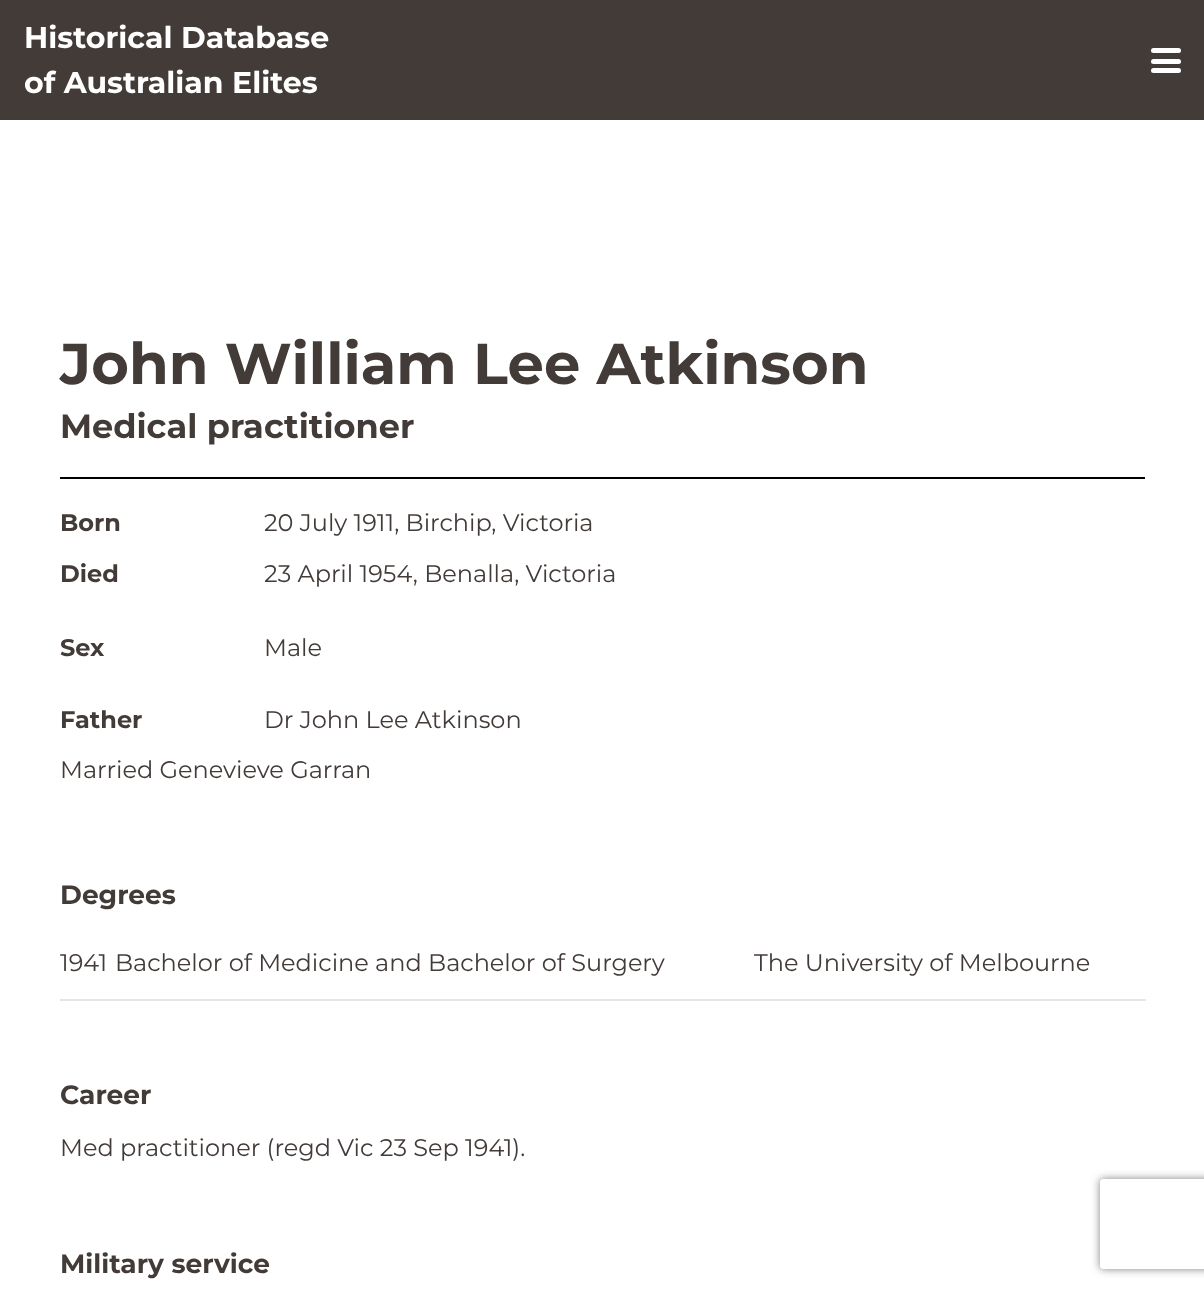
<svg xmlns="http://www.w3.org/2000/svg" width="1204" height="1290">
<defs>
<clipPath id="clip1"><path d="M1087 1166h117v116h-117zm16 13h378c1.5 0 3 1.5 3 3v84c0 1.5-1.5 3-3 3h-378c-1.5 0-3-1.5-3-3v-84c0-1.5 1.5-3 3-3z" clip-rule="evenodd"/></clipPath>
</defs>
<rect width="100%" height="100%" fill="#fff"/>
<rect width="1204" height="120" fill="#423b38"/>
<text x="24" y="48" style="font-family:Montserrat;font-size:30px;font-weight:bold;fill:#fff">Historical Database</text>
<text x="24" y="93" style="font-family:Montserrat;font-size:30px;font-weight:bold;fill:#fff">of Australian Elites</text>
<rect x="1151" y="59" width="30" height="5" rx="2.5" fill="#fff"/>
<rect x="1151" y="48" width="30" height="5" rx="2.5" fill="#fff"/>
<rect x="1151" y="68" width="30" height="5" rx="2.5" fill="#fff"/>
<text x="60" y="384" style="font-family:Montserrat;font-size:57.6px;font-weight:bold;fill:#423b38">John William Lee Atkinson</text>
<rect x="60" y="477" width="1085" height="2" fill="#000"/>
<text x="60" y="438" style="font-family:Montserrat;font-size:33.6px;font-weight:bold;fill:#423b38">Medical practitioner</text>
<text x="60" y="531" style="font-family:Montserrat;font-size:24px;font-weight:bold;fill:#423b38">Born</text>
<text x="264" y="531" style="font-family:Montserrat;font-size:24px;fill:#423b38">20 July 1911, Birchip, Victoria</text>
<text x="60" y="582" style="font-family:Montserrat;font-size:24px;font-weight:bold;fill:#423b38">Died</text>
<text x="264" y="582" style="font-family:Montserrat;font-size:24px;fill:#423b38">23 April 1954, Benalla, Victoria</text>
<text x="60" y="656" style="font-family:Montserrat;font-size:24px;font-weight:bold;fill:#423b38">Sex</text>
<text x="264" y="656" style="font-family:Montserrat;font-size:24px;fill:#423b38">Male</text>
<text x="60" y="728" style="font-family:Montserrat;font-size:24px;font-weight:bold;fill:#423b38">Father</text>
<text x="264" y="728" style="font-family:Montserrat;font-size:24px;fill:#423b38">Dr John Lee Atkinson</text>
<text x="60" y="778" style="font-family:Montserrat;font-size:24px;fill:#423b38">Married Genevieve Garran</text>
<text x="60" y="904" style="font-family:Montserrat;font-size:26.5px;font-weight:bold;fill:#423b38">Degrees</text>
<text x="60" y="971" style="font-family:Montserrat;font-size:24px;fill:#423b38">1941</text>
<text x="115" y="971" style="font-family:Montserrat;font-size:24px;fill:#423b38">Bachelor of Medicine and Bachelor of Surgery</text>
<rect x="60" y="999" width="1086" height="2" fill="#e8e5e1"/>
<text x="754" y="971" style="font-family:Montserrat;font-size:24px;fill:#423b38">The University of Melbourne</text>
<text x="60" y="1104" style="font-family:Montserrat;font-size:26.5px;font-weight:bold;fill:#423b38">Career</text>
<text x="60" y="1156" style="font-family:Montserrat;font-size:24px;fill:#423b38">Med practitioner (regd Vic 23 Sep 1941).</text>
<text x="60" y="1273" style="font-family:Montserrat;font-size:26.5px;font-weight:bold;fill:#423b38">Military service</text>
<g clip-path="url(#clip1)">
<rect x="1100" y="1179" width="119" height="90" rx="3" fill="#808080" filter="blur(4px)"/>
</g>
</svg>
